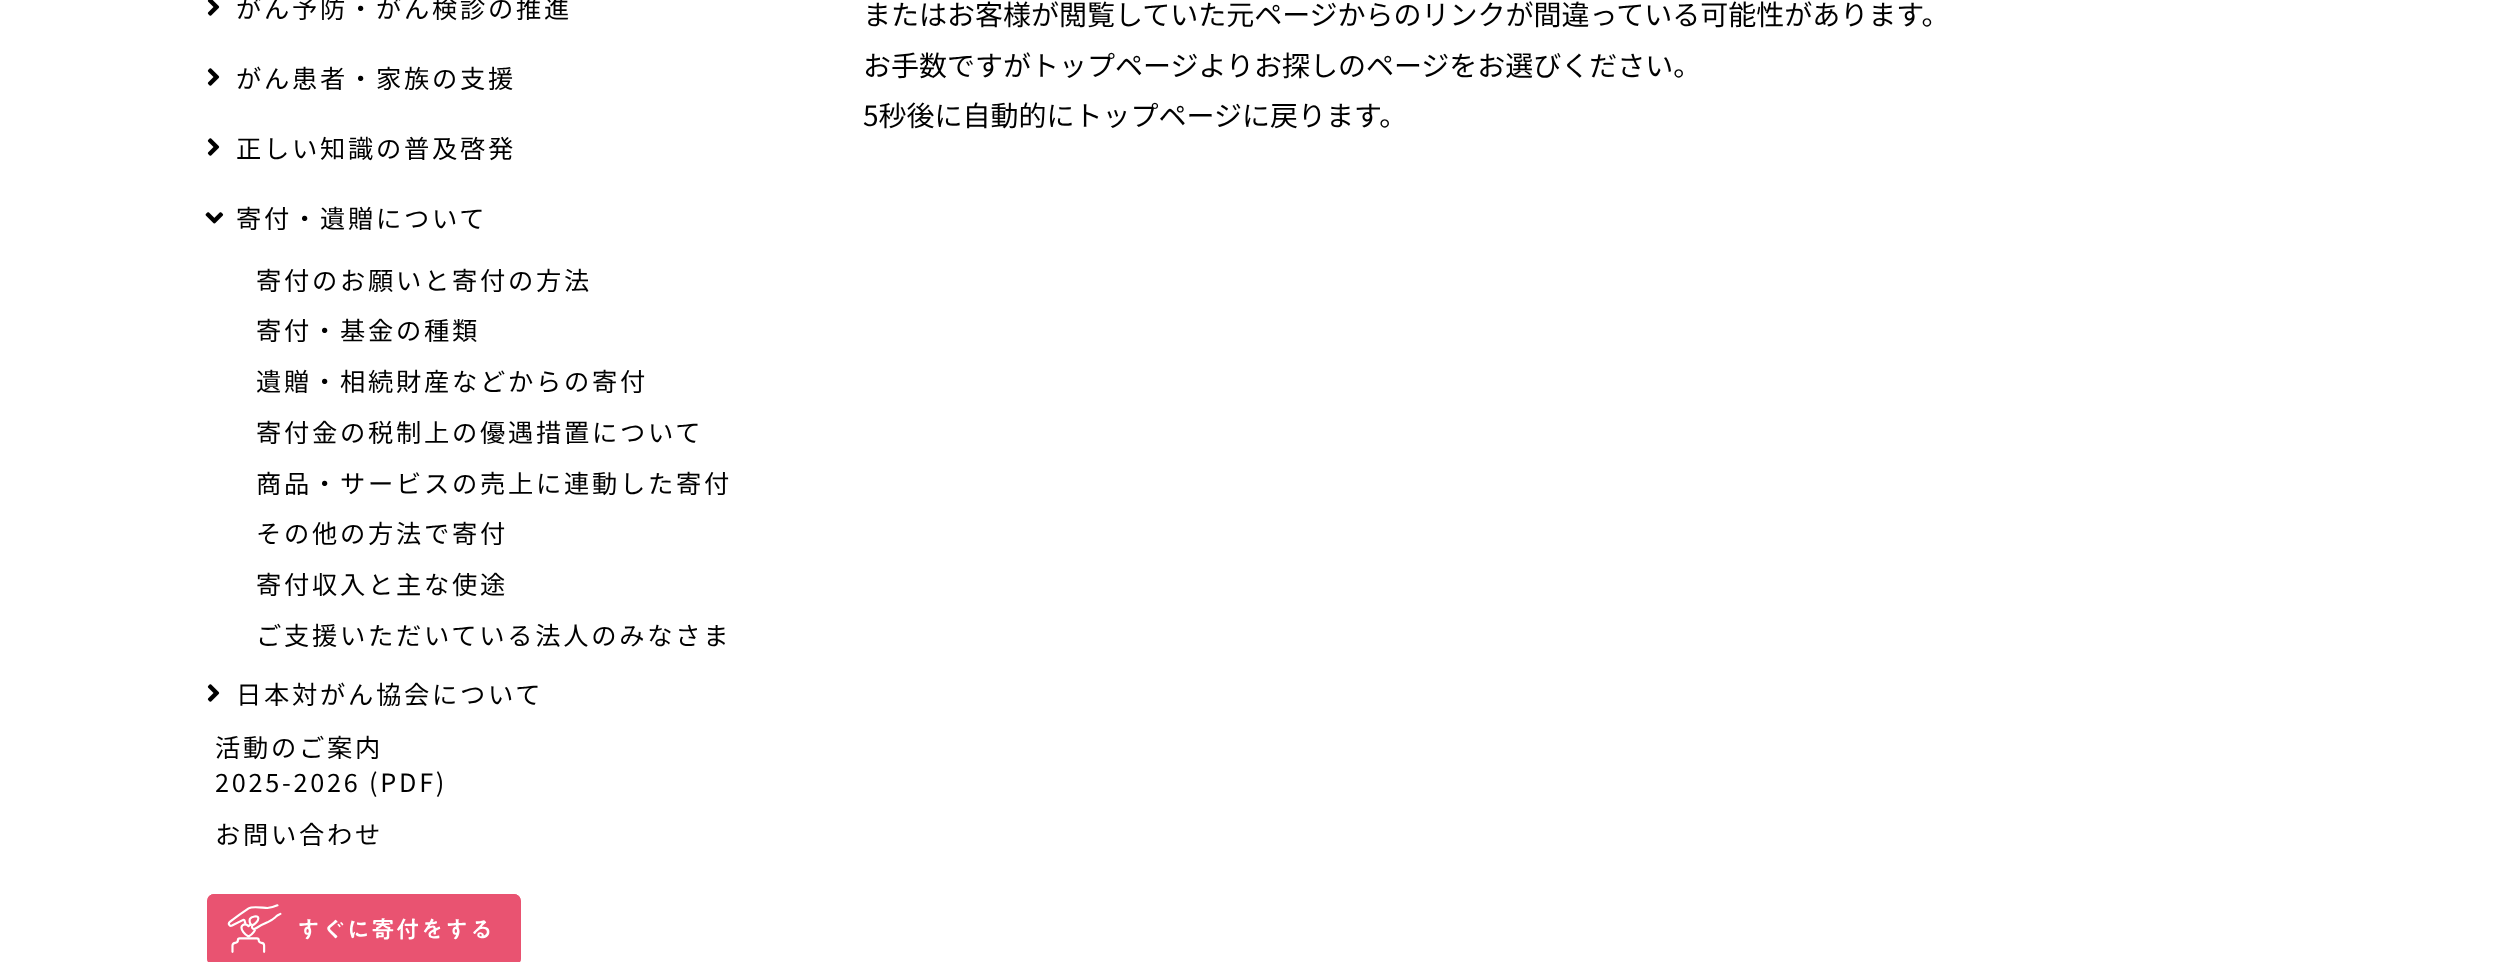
<svg xmlns="http://www.w3.org/2000/svg" width="2513" height="962">
<rect width="100%" height="100%" fill="#fff"/>
<image x="207" y="0" width="13" height="16" href="media/1.png"/>
<text x="236" y="18" style="font-family:Noto Sans JP;font-size:25.25px;letter-spacing:2.75px;fill:#000">がん予防・がん検診の推進</text>
<image x="207" y="68" width="13" height="18" href="media/2.png"/>
<text x="236" y="88" style="font-family:Noto Sans JP;font-size:25.25px;letter-spacing:2.75px;fill:#000">がん患者・家族の支援</text>
<image x="207" y="138" width="13" height="18" href="media/2.png"/>
<text x="236" y="158" style="font-family:Noto Sans JP;font-size:25.25px;letter-spacing:2.75px;fill:#000">正しい知識の普及啓発</text>
<image x="205" y="212" width="19" height="12" href="media/3.png"/>
<text x="236" y="228" style="font-family:Noto Sans JP;font-size:25.25px;letter-spacing:2.75px;fill:#000">寄付・遺贈について</text>
<text x="256" y="290" style="font-family:Noto Sans JP;font-size:25.25px;letter-spacing:2.75px;fill:#000">寄付のお願いと寄付の方法</text>
<text x="256" y="340" style="font-family:Noto Sans JP;font-size:25.25px;letter-spacing:2.75px;fill:#000">寄付・基金の種類</text>
<text x="256" y="391" style="font-family:Noto Sans JP;font-size:25.25px;letter-spacing:2.75px;fill:#000">遺贈・相続財産などからの寄付</text>
<text x="256" y="442" style="font-family:Noto Sans JP;font-size:25.25px;letter-spacing:2.75px;fill:#000">寄付金の税制上の優遇措置について</text>
<text x="256" y="493" style="font-family:Noto Sans JP;font-size:25.25px;letter-spacing:2.75px;fill:#000">商品・サービスの売上に連動した寄付</text>
<text x="256" y="543" style="font-family:Noto Sans JP;font-size:25.25px;letter-spacing:2.75px;fill:#000">その他の方法で寄付</text>
<text x="256" y="594" style="font-family:Noto Sans JP;font-size:25.25px;letter-spacing:2.75px;fill:#000">寄付収入と主な使途</text>
<text x="256" y="645" style="font-family:Noto Sans JP;font-size:25.25px;letter-spacing:2.75px;fill:#000">ご支援いただいている法人のみなさま</text>
<image x="207" y="684" width="13" height="18" href="media/2.png"/>
<text x="236" y="704" style="font-family:Noto Sans JP;font-size:25.25px;letter-spacing:2.75px;fill:#000">日本対がん協会について</text>
<text x="215" y="757" style="font-family:Noto Sans JP;font-size:25.25px;letter-spacing:2.75px;fill:#000">活動のご案内</text>
<text x="215" y="792" style="font-family:Noto Sans JP;font-size:25.25px;letter-spacing:2.75px;fill:#000">2025-2026 (PDF)</text>
<text x="215" y="844" style="font-family:Noto Sans JP;font-size:25.25px;letter-spacing:2.75px;fill:#000">お問い合わせ</text>
<image x="207" y="894" width="314" height="68" href="media/4.png"/>
<text x="863" y="25" style="font-family:Noto Sans JP;font-size:28px;fill:#000">またはお客様が閲覧していた元ページからのリンクが間違っている可能性があります。</text>
<text x="863" y="76" style="font-family:Noto Sans JP;font-size:28px;fill:#000">お手数ですがトップページよりお探しのページをお選びください。</text>
<text x="863" y="126" style="font-family:Noto Sans JP;font-size:28px;fill:#000">5秒後に自動的にトップページに戻ります。</text>
</svg>
